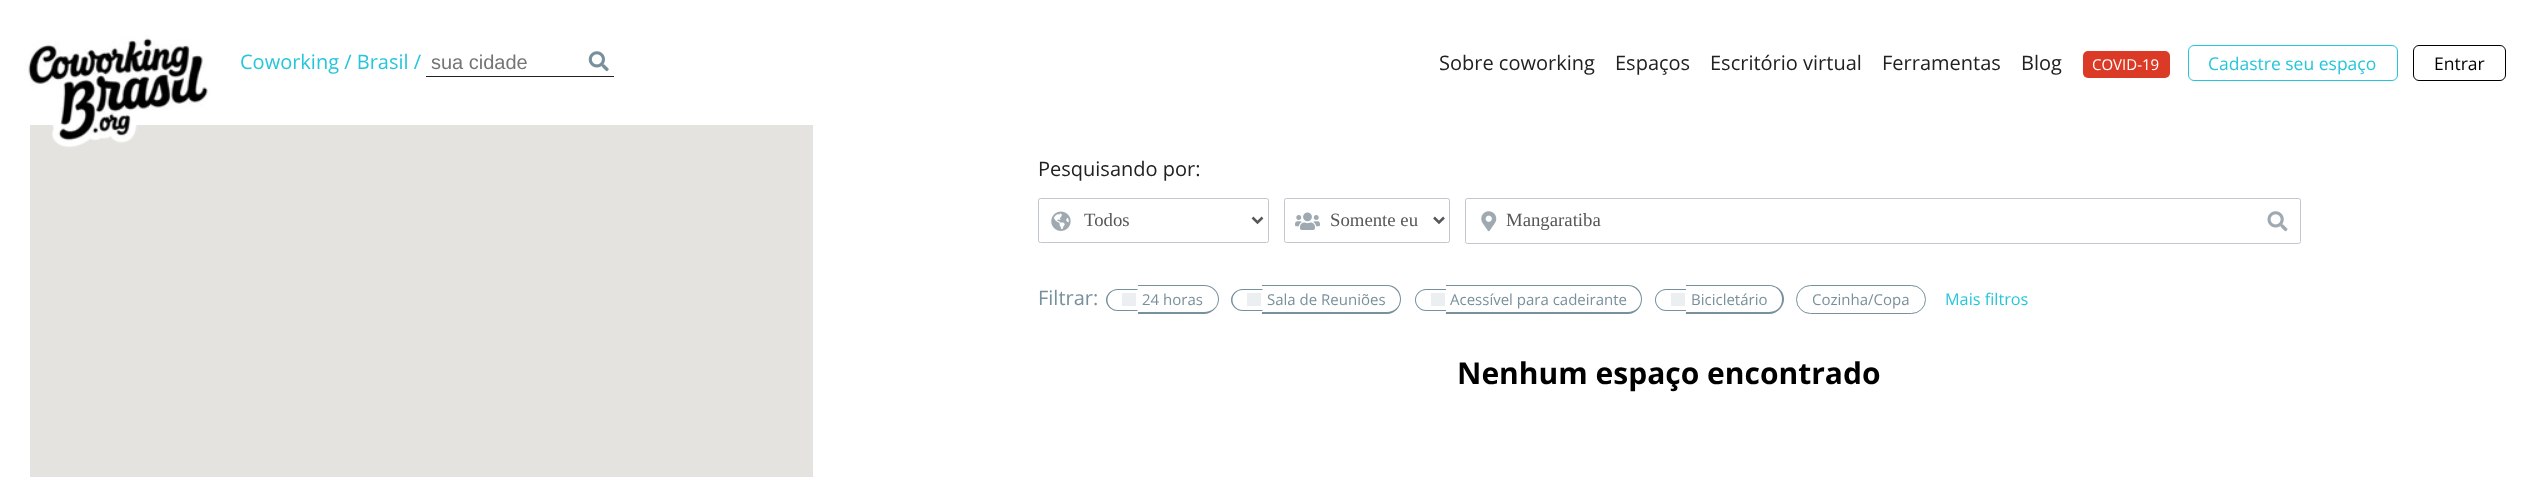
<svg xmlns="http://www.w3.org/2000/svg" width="2526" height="477">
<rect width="100%" height="100%" fill="#fff"/>
<rect x="30" y="125" width="783" height="352" fill="#e5e3df"/>
<image x="24" y="35" width="186" height="113" href="media/1.png"/>
<text x="240" y="69" style="font-family:Open Sans;font-size:20px;fill:#26c6da">Coworking / Brasil /</text>
<rect x="426" y="76" width="188" height="1" fill="#212121"/>
<text x="431" y="69" style="font-family:Liberation Sans;font-size:20px;fill:#757575">sua cidade</text>
<image x="588" y="51" width="21" height="21" href="media/2.png"/>
<text x="1439" y="70" style="font-family:Open Sans;font-size:20px;fill:#212121">Sobre coworking</text>
<text x="1615" y="70" style="font-family:Open Sans;font-size:20px;fill:#212121">Espaços</text>
<text x="1710" y="70" style="font-family:Open Sans;font-size:20px;fill:#212121">Escritório virtual</text>
<text x="1882" y="70" style="font-family:Open Sans;font-size:20px;fill:#212121">Ferramentas</text>
<text x="2021" y="70" style="font-family:Open Sans;font-size:20px;fill:#212121">Blog</text>
<rect x="2083" y="51" width="87" height="27" rx="5" fill="#db3b26"/>
<text x="2092" y="70" style="font-family:Open Sans;font-size:15px;fill:#fff">COVID-19</text>
<rect x="2188.5" y="45.5" width="209" height="35" rx="5.5" fill="none" stroke="#26c6da"/>
<text x="2208" y="70" style="font-family:Open Sans;font-size:17.5px;fill:#26c6da">Cadastre seu espaço</text>
<rect x="2413.5" y="45.5" width="92" height="35" rx="5.5" fill="none" stroke="#000"/>
<text x="2434" y="70" style="font-family:Open Sans;font-size:17.5px;fill:#000">Entrar</text>
<text x="1038" y="176" style="font-family:Open Sans;font-size:20px;fill:#212121">Pesquisando por:</text>
<rect x="1038.5" y="198.5" width="230" height="44" rx="2" fill="none" stroke="#c1c7ce"/>
<image x="1051" y="211" width="20" height="20" href="media/3.png"/>
<path d="M1252.5 217.5l5 5l5-5" fill="none" stroke="#565757" stroke-width="2.5"/>
<text x="1084" y="226" style="font-family:Liberation Serif;font-size:18.75px;fill:#565757">Todos</text>
<rect x="1284.5" y="198.5" width="165" height="44" rx="2" fill="none" stroke="#c1c7ce"/>
<image x="1295" y="212" width="25" height="18" href="media/4.png"/>
<path d="M1434 217.5l5 5l5-5" fill="none" stroke="#565757" stroke-width="2.5"/>
<text x="1330" y="226" style="font-family:Liberation Serif;font-size:18.75px;fill:#565757">Somente eu</text>
<rect x="1465.5" y="198.5" width="835" height="45" rx="2" fill="none" stroke="#c1c7ce"/>
<image x="1481" y="211" width="16" height="21" href="media/5.png"/>
<text x="1506" y="226" style="font-family:Liberation Serif;font-size:18.75px;fill:#565757">Mangaratiba</text>
<image x="2267" y="211" width="21" height="21" href="media/6.png"/>
<text x="1038" y="305" style="font-family:Open Sans;font-size:20px;fill:#78909c">Filtrar:</text>
<path d="M1117.5 289h20v22h-20c-6 0-11.5-5-11.5-11c0-6 5.5-11 11.5-11zm0 1h20v20h-20c-5.5 0-10-4.5-10-10c0-5.5 4.5-10 10-10z" fill="#78909c" fill-rule="evenodd"/>
<path d="M1138 285h66c8 0 15 6 15 14c0 8-7 15-15 15h-66zm0 1h66c8 0 14 6 14 13c0 8-6 13-14 13h-66z" fill="#78909c" fill-rule="evenodd"/>
<rect x="1122" y="293" width="14" height="13" fill="#eceff1"/>
<text x="1142" y="305" style="font-family:Open Sans;font-size:15px;fill:#78909c">24 horas</text>
<path d="M1242.5 289h20v22h-20c-6 0-11.5-5-11.5-11c0-6 5.5-11 11.5-11zm0 1h20v20h-20c-5.5 0-10-4.5-10-10c0-5.5 4.5-10 10-10z" fill="#78909c" fill-rule="evenodd"/>
<path d="M1262 285h125c8 0 14 6 14 14c0 8-6 15-14 15h-125zm0 1h125c7 0 13 6 13 13c0 8-6 13-13 13h-125z" fill="#78909c" fill-rule="evenodd"/>
<rect x="1247" y="293" width="14" height="13" fill="#eceff1"/>
<text x="1267" y="305" style="font-family:Open Sans;font-size:15px;fill:#78909c">Sala de Reuniões</text>
<path d="M1426 289h20v22h-20c-6 0-11-5-11-11c0-6 5-11 11-11zm0 1h20v20h-20c-5.5 0-10-4.5-10-10c0-5.5 4.5-10 10-10z" fill="#78909c" fill-rule="evenodd"/>
<path d="M1446 285h182c8 0 14 6 14 14c0 8-6 15-14 15h-182zm0 1h182c7 0 13 6 13 13c0 8-6 13-13 13h-182z" fill="#78909c" fill-rule="evenodd"/>
<rect x="1431" y="293" width="14" height="13" fill="#eceff1"/>
<text x="1450" y="305" style="font-family:Open Sans;font-size:15px;fill:#78909c">Acessível para cadeirante</text>
<path d="M1666 289h20v22h-20c-6 0-11-5-11-11c0-6 5-11 11-11zm0 1h20v20h-20c-5.5 0-10-4.5-10-10c0-5.5 4.5-10 10-10z" fill="#78909c" fill-rule="evenodd"/>
<path d="M1686 285h83c8 0 15 6 15 14c0 8-7 15-15 15h-83zm0 1h83c8 0 13 6 13 13c0 8-5 13-13 13h-83z" fill="#78909c" fill-rule="evenodd"/>
<rect x="1671" y="293" width="14" height="13" fill="#eceff1"/>
<text x="1691" y="305" style="font-family:Open Sans;font-size:15px;fill:#78909c">Bicicletário</text>
<rect x="1796.5" y="285.5" width="129" height="28" rx="14" fill="none" stroke="#78909c"/>
<text x="1812" y="305" style="font-family:Open Sans;font-size:15px;fill:#78909c">Cozinha/Copa</text>
<text x="1945" y="305" style="font-family:Open Sans;font-size:16.25px;fill:#26c6da">Mais filtros</text>
<text x="1457" y="384" style="font-family:Open Sans;font-size:30px;font-weight:bold;fill:#000">Nenhum espaço encontrado</text>
</svg>
